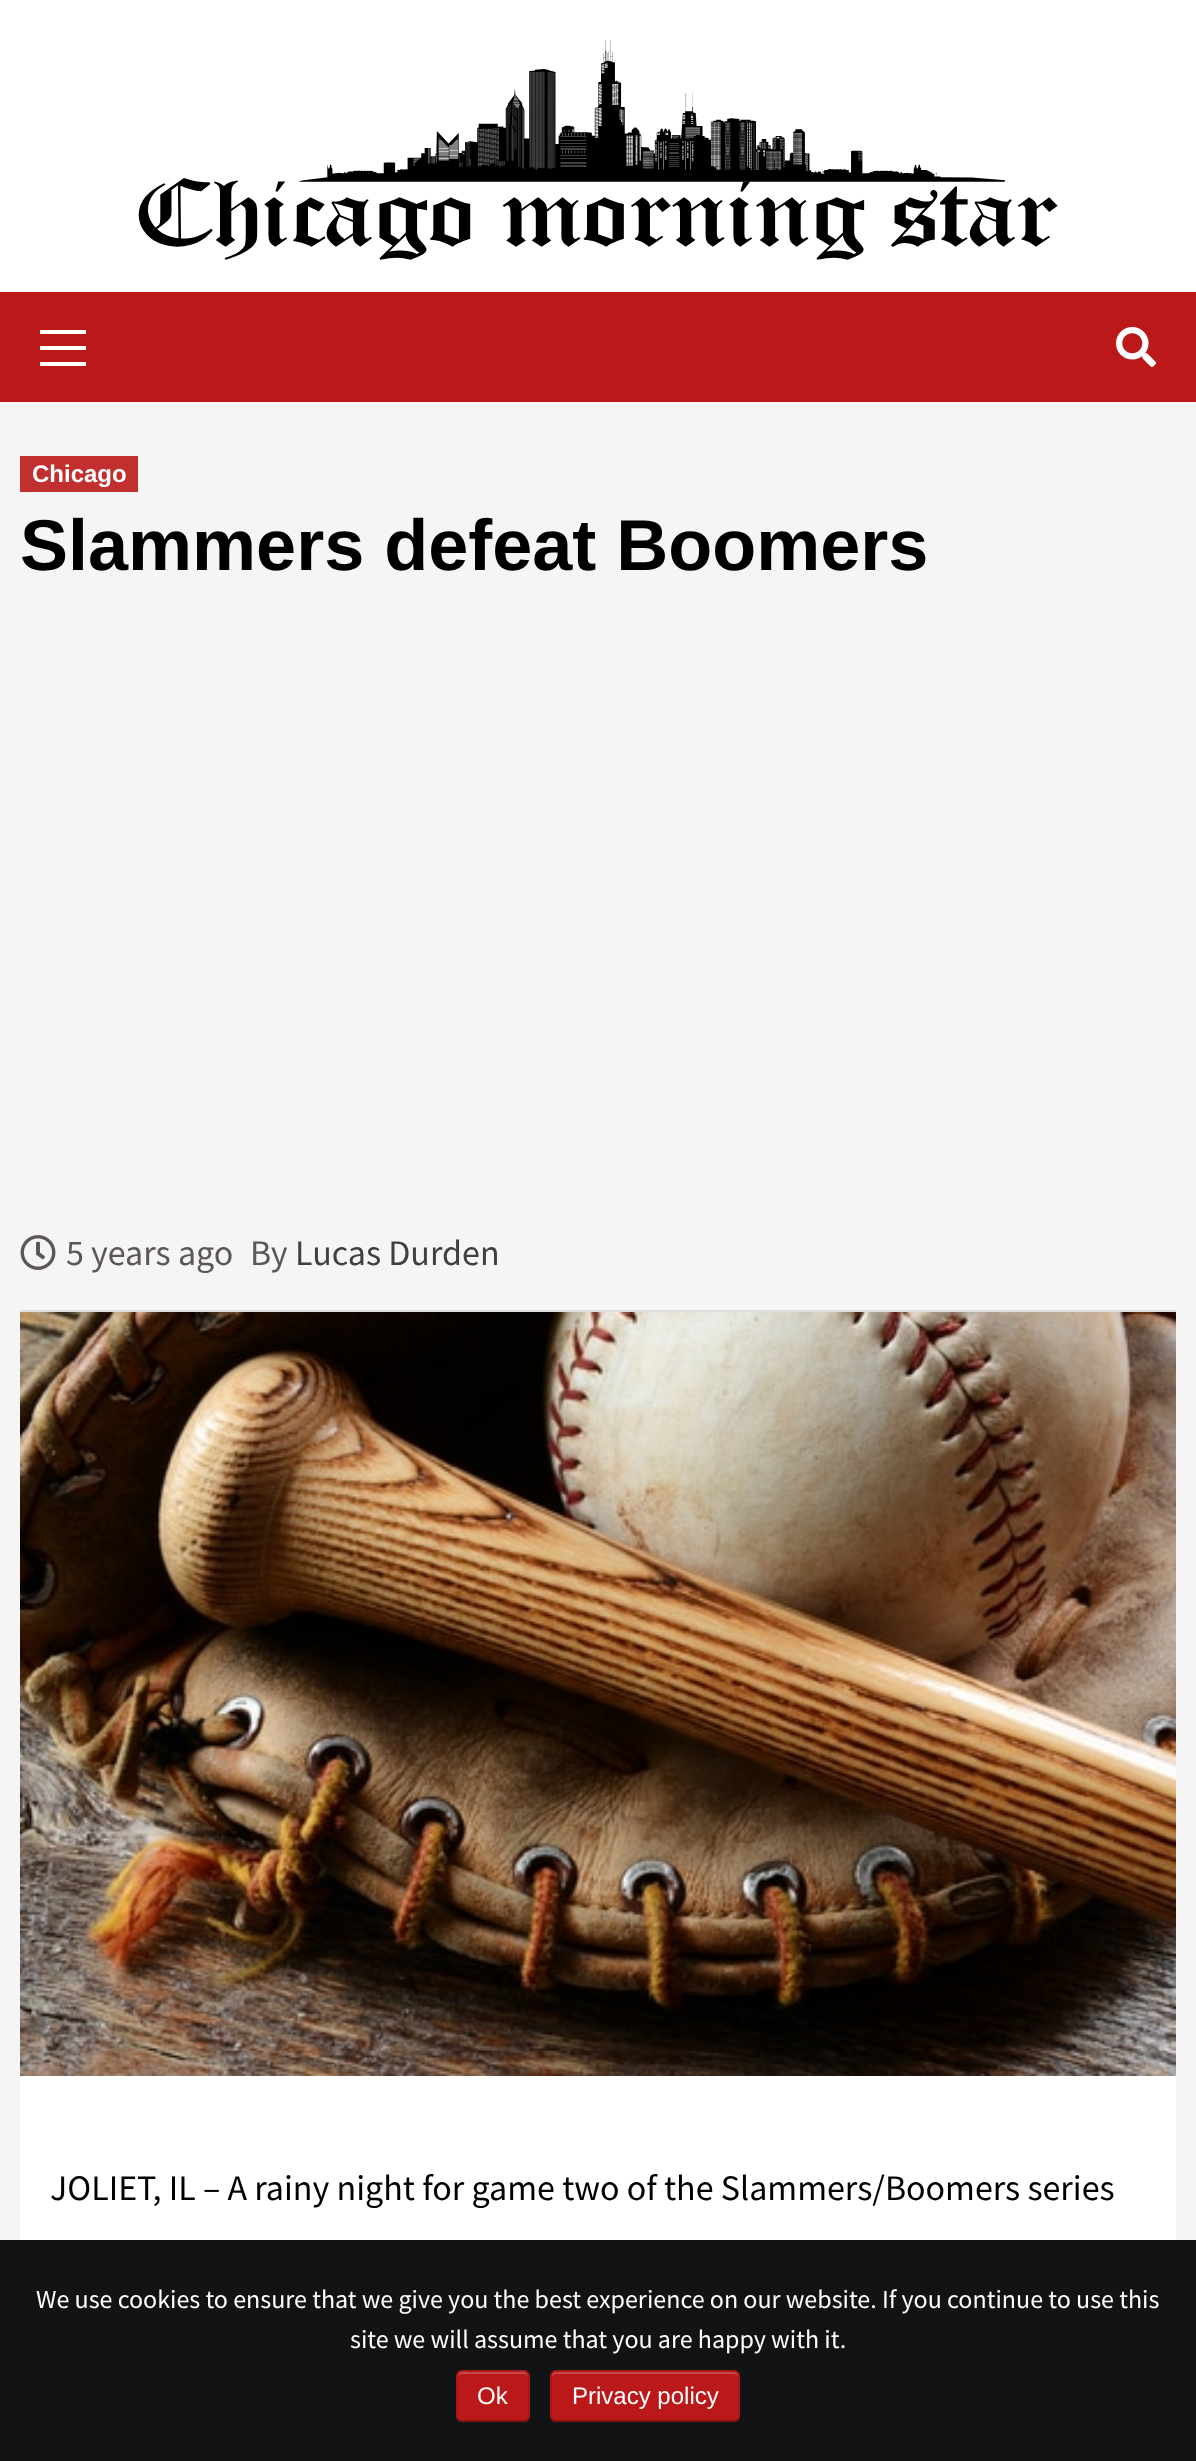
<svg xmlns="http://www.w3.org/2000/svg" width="1196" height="2461">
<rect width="100%" height="100%" fill="#f5f5f5"/>
<rect width="1196" height="292" fill="#fff"/>
<image x="138" y="40" width="920" height="220" href="media/1.png"/>
<rect y="292" width="1196" height="110" fill="#bb1919"/>
<rect x="40" y="346" width="46" height="4" fill="#fff"/>
<rect x="40" y="330" width="46" height="4" fill="#fff"/>
<rect x="40" y="362" width="46" height="4" fill="#fff"/>
<image x="1116" y="327" width="40" height="40" href="media/2.png"/>
<rect x="20" y="2076" width="1156" height="164" fill="#fff"/>
<rect x="20" y="1310" width="1156" height="2" fill="#dedede"/>
<rect x="20" y="456" width="118" height="36" fill="#c12f2f"/>
<text x="32" y="482" style="font-family:Liberation Sans;font-size:24px;font-weight:bold;fill:#fefefe">Chicago</text>
<text x="20" y="570" style="font-family:Liberation Sans;font-size:72px;font-weight:bold;fill:#000">Slammers defeat Boomers</text>
<image x="20" y="1235" width="36" height="35" href="media/3.png"/>
<text x="66" y="1265" style="font-family:Source Sans Pro;font-size:36px;fill:#5d5656">5 years ago</text>
<text x="250" y="1265" style="font-family:Source Sans Pro;font-size:36px;fill:#5d5656">By</text>
<text x="295" y="1265" style="font-family:Source Sans Pro;font-size:36px;fill:#404040">Lucas Durden</text>
<image x="20" y="1312" width="1156" height="764" href="media/4.png"/>
<text x="50" y="2200" style="font-family:Source Sans Pro;font-size:36px;fill:#000">JOLIET, IL – A rainy night for game two of the Slammers/Boomers series</text>
<rect y="2240" width="1196" height="221" fill="#121314"/>
<text x="36" y="2308" style="font-family:Source Sans Pro;font-size:26px;fill:#fefefe">We use cookies to ensure that we give you the best experience on our website. If you continue to use this</text>
<text x="350" y="2348" style="font-family:Source Sans Pro;font-size:26px;fill:#fefefe">site we will assume that you are happy with it.</text>
<rect x="456" y="2370" width="74" height="52" rx="6" fill="#bb1919"/>
<path d="M462 2374h62c2 0 4 2 4 4c0-9-7-6-14-6h-42c-7 0-14-3-14 6c0-2 2-4 4-4z" fill="#c94747"/>
<path d="M527.5 2419.5c-1 1-2 1.5-3.5 1.5h-62c-1.5 0-2.5-.5-3.5-1.5" fill="none" stroke="#00000040" stroke-width="2"/>
<path d="M458.5 2419.5c-1-1-1.5-2-1.5-3.5v-40c0-1.5 .5-2.5 1.5-3.5c1-1 2-1.5 3.5-1.5h62c1.5 0 2.5 .5 3.5 1.5c1 1 1.5 2 1.5 3.5v40c0 1.5-.5 2.5-1.5 3.5" fill="none" stroke="#0000001a" stroke-width="2"/>
<text x="477" y="2404" style="font-family:Liberation Sans;font-size:24px;fill:#fefefe">Ok</text>
<rect x="550" y="2370" width="190" height="52" rx="6" fill="#bb1919"/>
<path d="M556 2374h178c2 0 4 2 4 4v-2c0-2-2-4-4-4h-178c-2 0-4 2-4 4v2c0-2 2-4 4-4z" fill="#c94747"/>
<path d="M737.5 2419.5c-1 1-2 1.5-3.5 1.5h-178c-1.5 0-2.5-.5-3.5-1.5" fill="none" stroke="#00000040" stroke-width="2"/>
<path d="M552.5 2419.5c-1-1-1.5-2-1.5-3.5v-40c0-1.5 .5-2.5 1.5-3.5c1-1 2-1.5 3.5-1.5h178c1.5 0 2.5 .5 3.5 1.5c1 1 1.5 2 1.5 3.5v40c0 1.5-.5 2.5-1.5 3.5" fill="none" stroke="#0000001a" stroke-width="2"/>
<text x="572" y="2404" style="font-family:Liberation Sans;font-size:24px;fill:#fefefe">Privacy policy</text>
</svg>
